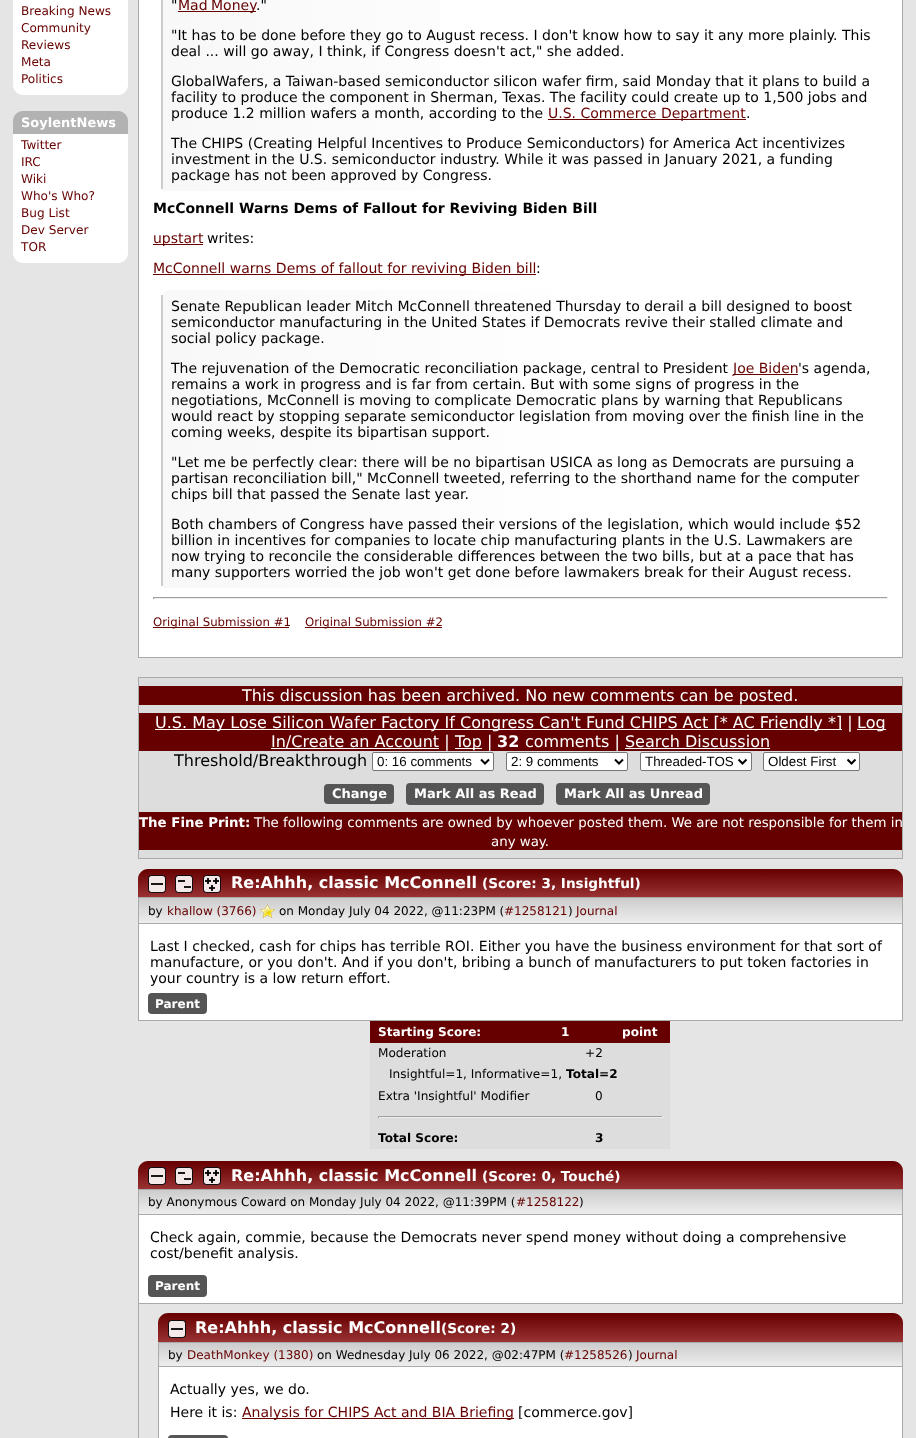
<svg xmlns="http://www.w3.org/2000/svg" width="916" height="1438">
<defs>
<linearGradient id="g1" gradientUnits="userSpaceOnUse" x1="163" y1="43" x2="880" y2="42"><stop offset="0" stop-color="#f8f8f8"/><stop offset="0.6" stop-color="#fff"/></linearGradient>
<clipPath id="clip1"><path d="M171 290h709v298h-714c-3 0-5-2-5-5v-283c0-5.5 4.5-10 10-10z"/></clipPath>
<linearGradient id="g2" gradientUnits="userSpaceOnUse" x1="163" y1="439" x2="880" y2="439"><stop offset="0" stop-color="#f8f8f8"/><stop offset="0.6" stop-color="#fff"/></linearGradient>
<linearGradient id="g3" gradientUnits="userSpaceOnUse" x1="521" y1="869" x2="521" y2="897"><stop offset="0" stop-color="#600"/><stop offset="1" stop-color="#933"/></linearGradient>
<linearGradient id="g4" gradientUnits="userSpaceOnUse" x1="521" y1="898" x2="521" y2="923"><stop offset="0" stop-color="#ccc"/><stop offset="1" stop-color="#eee"/></linearGradient>
<linearGradient id="g5" gradientUnits="userSpaceOnUse" x1="521" y1="1161" x2="521" y2="1189"><stop offset="0" stop-color="#600"/><stop offset="1" stop-color="#933"/></linearGradient>
<linearGradient id="g6" gradientUnits="userSpaceOnUse" x1="521" y1="1190" x2="521" y2="1214"><stop offset="0" stop-color="#ccc"/><stop offset="1" stop-color="#eee"/></linearGradient>
<linearGradient id="g7" gradientUnits="userSpaceOnUse" x1="531" y1="1313" x2="531" y2="1342"><stop offset="0" stop-color="#600"/><stop offset="1" stop-color="#933"/></linearGradient>
<linearGradient id="g8" gradientUnits="userSpaceOnUse" x1="531" y1="1343" x2="531" y2="1366"><stop offset="0" stop-color="#ccc"/><stop offset="1" stop-color="#eee"/></linearGradient>
</defs>
<rect width="100%" height="100%" fill="#e5e5e5"/>
<path d="M13-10h115v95c0 5.5-4.5 10-10 10h-95c-5.5 0-10-4.5-10-10z" fill="#fff"/>
<text x="21" y="15" style="font-family:DejaVu Sans;font-size:12.1px;fill:#600">Breaking News</text>
<text x="21" y="32" style="font-family:DejaVu Sans;font-size:12.1px;fill:#600">Community</text>
<text x="21" y="49" style="font-family:DejaVu Sans;font-size:12.1px;fill:#600">Reviews</text>
<text x="21" y="66" style="font-family:DejaVu Sans;font-size:12.1px;fill:#600">Meta</text>
<text x="21" y="83" style="font-family:DejaVu Sans;font-size:12.1px;fill:#600">Politics</text>
<path d="M23 111h95c5.5 0 10 4.5 10 10v13h-115v-13c0-5.5 4.5-10 10-10z" fill="#b2b2b2"/>
<text x="21" y="127" style="font-family:DejaVu Sans;font-size:13px;font-weight:bold;fill:#fff">SoylentNews</text>
<path d="M13 134h115v119c0 5.5-4.5 10-10 10h-95c-5.5 0-10-4.5-10-10z" fill="#fff"/>
<text x="21" y="149" style="font-family:DejaVu Sans;font-size:12.1px;fill:#600">Twitter</text>
<text x="21" y="166" style="font-family:DejaVu Sans;font-size:12.1px;fill:#600">IRC</text>
<text x="21" y="183" style="font-family:DejaVu Sans;font-size:12.1px;fill:#600">Wiki</text>
<text x="21" y="200" style="font-family:DejaVu Sans;font-size:12.1px;fill:#600">Who's Who?</text>
<text x="21" y="217" style="font-family:DejaVu Sans;font-size:12.1px;fill:#600">Bug List</text>
<text x="21" y="234" style="font-family:DejaVu Sans;font-size:12.1px;fill:#600">Dev Server</text>
<text x="21" y="251" style="font-family:DejaVu Sans;font-size:12.1px;fill:#600">TOR</text>
<rect x="139" width="763" height="657" fill="#fff"/>
<rect x="902" width="1" height="658" fill="#aaa"/>
<rect x="138" y="657" width="765" height="1" fill="#aaa"/>
<rect x="138" width="1" height="658" fill="#aaa"/>
<rect x="163" width="277" height="191" fill="url(#g1)"/>
<rect x="161" width="2" height="189" fill="#ccc"/>
<text x="171" y="10" style="font-family:DejaVu Sans;font-size:14px;fill:#000">"</text>
<rect x="178" y="11" width="78" height="1" fill="#600"/>
<text x="178" y="10" word-spacing="-1" style="font-family:DejaVu Sans;font-size:14px;fill:#600">Mad Money</text>
<text x="256" y="10" style="font-family:DejaVu Sans;font-size:14px;fill:#000">."</text>
<text x="171" y="40" style="font-family:DejaVu Sans;font-size:14px;fill:#000">"It has to be done before they go to August recess. I don't know how to say it any more plainly. This</text>
<text x="171" y="56" style="font-family:DejaVu Sans;font-size:14px;fill:#000">deal ... will go away, I think, if Congress doesn't act," she added.</text>
<text x="171" y="86" style="font-family:DejaVu Sans;font-size:14px;fill:#000">GlobalWafers, a Taiwan-based semiconductor silicon wafer firm, said Monday that it plans to build a</text>
<text x="171" y="102" style="font-family:DejaVu Sans;font-size:14px;fill:#000">facility to produce the component in Sherman, Texas. The facility could create up to 1,500 jobs and</text>
<text x="171" y="118" style="font-family:DejaVu Sans;font-size:14px;fill:#000">produce 1.2 million wafers a month, according to the</text>
<rect x="548" y="119" width="198" height="1" fill="#600"/>
<text x="548" y="118" style="font-family:DejaVu Sans;font-size:14px;fill:#600">U.S. Commerce Department</text>
<text x="746" y="118" style="font-family:DejaVu Sans;font-size:14px;fill:#000">.</text>
<text x="171" y="148" style="font-family:DejaVu Sans;font-size:14px;fill:#000">The CHIPS (Creating Helpful Incentives to Produce Semiconductors) for America Act incentivizes</text>
<text x="171" y="164" style="font-family:DejaVu Sans;font-size:14px;fill:#000">investment in the U.S. semiconductor industry. While it was passed in January 2021, a funding</text>
<text x="171" y="180" style="font-family:DejaVu Sans;font-size:14px;fill:#000">package has not been approved by Congress.</text>
<text x="153" y="213" style="font-family:DejaVu Sans;font-size:14px;font-weight:bold;fill:#000">McConnell Warns Dems of Fallout for Reviving Biden Bill</text>
<rect x="153" y="244" width="50" height="1" fill="#600"/>
<text x="153" y="243" style="font-family:DejaVu Sans;font-size:14px;fill:#600">upstart</text>
<text x="207" y="243" style="font-family:DejaVu Sans;font-size:14px;fill:#000">writes:</text>
<rect x="153" y="274" width="383" height="1" fill="#600"/>
<text x="153" y="273" style="font-family:DejaVu Sans;font-size:14px;fill:#600">McConnell warns Dems of fallout for reviving Biden bill</text>
<text x="536" y="273" style="font-family:DejaVu Sans;font-size:14px;fill:#000">:</text>
<g clip-path="url(#clip1)">
<rect x="163" y="290" width="717" height="298" fill="url(#g2)"/>
</g>
<rect x="161" y="295" width="2" height="291" fill="#ccc"/>
<text x="171" y="311" style="font-family:DejaVu Sans;font-size:14px;fill:#000">Senate Republican leader Mitch McConnell threatened Thursday to derail a bill designed to boost</text>
<text x="171" y="327" style="font-family:DejaVu Sans;font-size:14px;fill:#000">semiconductor manufacturing in the United States if Democrats revive their stalled climate and</text>
<text x="171" y="343" style="font-family:DejaVu Sans;font-size:14px;fill:#000">social policy package.</text>
<text x="171" y="373" style="font-family:DejaVu Sans;font-size:14px;fill:#000">The rejuvenation of the Democratic reconciliation package, central to President</text>
<rect x="733" y="374" width="65" height="1" fill="#600"/>
<text x="733" y="373" style="font-family:DejaVu Sans;font-size:14px;fill:#600">Joe Biden</text>
<text x="798" y="373" style="font-family:DejaVu Sans;font-size:14px;fill:#000">'s agenda,</text>
<text x="171" y="389" style="font-family:DejaVu Sans;font-size:14px;fill:#000">remains a work in progress and is far from certain. But with some signs of progress in the</text>
<text x="171" y="405" style="font-family:DejaVu Sans;font-size:14px;fill:#000">negotiations, McConnell is moving to complicate Democratic plans by warning that Republicans</text>
<text x="171" y="421" style="font-family:DejaVu Sans;font-size:14px;fill:#000">would react by stopping separate semiconductor legislation from moving over the finish line in the</text>
<text x="171" y="437" style="font-family:DejaVu Sans;font-size:14px;fill:#000">coming weeks, despite its bipartisan support.</text>
<text x="171" y="467" style="font-family:DejaVu Sans;font-size:14px;fill:#000">"Let me be perfectly clear: there will be no bipartisan USICA as long as Democrats are pursuing a</text>
<text x="171" y="483" style="font-family:DejaVu Sans;font-size:14px;fill:#000">partisan reconciliation bill," McConnell tweeted, referring to the shorthand name for the computer</text>
<text x="171" y="499" style="font-family:DejaVu Sans;font-size:14px;fill:#000">chips bill that passed the Senate last year.</text>
<text x="171" y="529" style="font-family:DejaVu Sans;font-size:14px;fill:#000">Both chambers of Congress have passed their versions of the legislation, which would include $52</text>
<text x="171" y="545" style="font-family:DejaVu Sans;font-size:14px;fill:#000">billion in incentives for companies to locate chip manufacturing plants in the U.S. Lawmakers are</text>
<text x="171" y="561" style="font-family:DejaVu Sans;font-size:14px;fill:#000">now trying to reconcile the considerable differences between the two bills, but at a pace that has</text>
<text x="171" y="577" style="font-family:DejaVu Sans;font-size:14px;fill:#000">many supporters worried the job won't get done before lawmakers break for their August recess.</text>
<rect x="153" y="597" width="735" height="1" fill="#9f9f9f"/>
<rect x="887" y="597" width="1" height="2" fill="#eee"/>
<rect x="153" y="598" width="735" height="1" fill="#eee"/>
<rect x="153" y="597" width="1" height="2" fill="#9f9f9f"/>
<rect x="153" y="627" width="136" height="1" fill="#600"/>
<text x="153" y="626" style="font-family:DejaVu Sans;font-size:11.75px;fill:#600">Original Submission #1</text>
<rect x="305" y="627" width="137" height="1" fill="#600"/>
<text x="305" y="626" style="font-family:DejaVu Sans;font-size:11.75px;fill:#600">Original Submission #2</text>
<rect x="138.5" y="677.5" width="764" height="181" fill="#ddd" stroke="#aaa"/>
<rect x="139" y="686" width="763" height="19" fill="#600"/>
<text x="242" y="701" style="font-family:DejaVu Sans;font-size:16px;fill:#fff">This discussion has been archived. No new comments can be posted.</text>
<rect x="139" y="713" width="763" height="38" fill="#600"/>
<rect x="155" y="729" width="687" height="1" fill="#fff"/>
<text x="155" y="728" style="font-family:DejaVu Sans;font-size:16px;fill:#fff">U.S. May Lose Silicon Wafer Factory If Congress Can't Fund CHIPS Act [* AC Friendly *] |</text>
<rect x="857" y="729" width="29" height="1" fill="#fff"/>
<text x="857" y="728" style="font-family:DejaVu Sans;font-size:16px;fill:#fff">Log</text>
<rect x="271" y="748" width="168" height="1" fill="#fff"/>
<text x="271" y="747" style="font-family:DejaVu Sans;font-size:16px;fill:#fff">In/Create an Account |</text>
<rect x="455" y="748" width="27" height="1" fill="#fff"/>
<text x="455" y="747" style="font-family:DejaVu Sans;font-size:16px;fill:#fff">Top |</text>
<text x="497" y="747" style="font-family:DejaVu Sans;font-size:16px;font-weight:bold;fill:#fff">32</text>
<text x="525" y="747" style="font-family:DejaVu Sans;font-size:16px;fill:#fff">comments | Search Discussion</text>
<rect x="625" y="748" width="145" height="1" fill="#fff"/>
<text x="174" y="766" style="font-family:DejaVu Sans;font-size:16px;fill:#000">Threshold/Breakthrough</text>
<rect x="372.5" y="752.5" width="121" height="18" rx="1.5" fill="#fff" stroke="#767676"/>
<path d="M481 759.5l4 4l4-4" fill="none" stroke="#000" stroke-width="2"/>
<text x="377" y="766" style="font-family:Liberation Sans;font-size:13.35px;fill:#000">0: 16 comments</text>
<rect x="506.5" y="752.5" width="121" height="18" rx="1.5" fill="#fff" stroke="#767676"/>
<path d="M615 759.5l4 4l4-4" fill="none" stroke="#000" stroke-width="2"/>
<text x="511" y="766" style="font-family:Liberation Sans;font-size:13.35px;fill:#000">2: 9 comments</text>
<rect x="640.5" y="752.5" width="111" height="18" rx="1.5" fill="#fff" stroke="#767676"/>
<path d="M738.5 759.5l4 4l4-4" fill="none" stroke="#000" stroke-width="2"/>
<text x="645" y="766" style="font-family:Liberation Sans;font-size:13.35px;fill:#000">Threaded-TOS</text>
<rect x="763.5" y="752.5" width="96" height="18" rx="1.5" fill="#fff" stroke="#767676"/>
<path d="M847.5 759.5l4 4l4-4" fill="none" stroke="#000" stroke-width="2"/>
<text x="768" y="766" style="font-family:Liberation Sans;font-size:13.35px;fill:#000">Oldest First</text>
<rect x="324" y="784" width="70" height="20" rx="4" fill="#555"/>
<text x="332" y="798" style="font-family:DejaVu Sans;font-size:13px;font-weight:bold;fill:#fff">Change</text>
<rect x="406" y="783" width="138" height="22" rx="4" fill="#555"/>
<text x="414" y="798" style="font-family:DejaVu Sans;font-size:13px;font-weight:bold;fill:#fff">Mark All as Read</text>
<rect x="556" y="783" width="154" height="22" rx="4" fill="#555"/>
<text x="564" y="798" style="font-family:DejaVu Sans;font-size:13px;font-weight:bold;fill:#fff">Mark All as Unread</text>
<rect x="139" y="812" width="763" height="38" fill="#600"/>
<text x="139" y="827" style="font-family:DejaVu Sans;font-size:13.35px;font-weight:bold;fill:#fff">The Fine Print:</text>
<text x="254" y="827" style="font-family:DejaVu Sans;font-size:13.35px;fill:#fff">The following comments are owned by whoever posted them. We are not responsible for them in</text>
<text x="491" y="846" style="font-family:DejaVu Sans;font-size:13.35px;fill:#fff">any way.</text>
<path d="M148 869h745c5.5 0 10 4.5 10 10v18h-765v-18c0-5.5 4.5-10 10-10z" fill="url(#g3)"/>
<image x="148" y="875" width="18" height="18" href="media/1.png"/>
<text x="231" y="888" style="font-family:DejaVu Sans;font-size:16px;font-weight:bold;fill:#fff">Re:Ahhh, classic McConnell</text>
<text x="482" y="888" style="font-family:DejaVu Sans;font-size:13.6px;font-weight:bold;fill:#fff">(Score: 3, Insightful)</text>
<rect x="139" y="898" width="763" height="25" fill="url(#g4)"/>
<rect x="138.5" y="897.5" width="764" height="26" fill="none" stroke="#aaa"/>
<text x="148" y="915" style="font-family:DejaVu Sans;font-size:12px;fill:#000">by</text>
<text x="167" y="915" style="font-family:DejaVu Sans;font-size:12px;fill:#600">khallow (3766)</text>
<image x="260" y="904" width="15" height="14" href="media/2.png"/>
<text x="279" y="915" style="font-family:DejaVu Sans;font-size:12px;fill:#000">on Monday July 04 2022, @11:23PM (</text>
<text x="504" y="915" style="font-family:DejaVu Sans;font-size:12px;fill:#600">#1258121</text>
<text x="568" y="915" style="font-family:DejaVu Sans;font-size:12px;fill:#000">)</text>
<text x="576" y="915" style="font-family:DejaVu Sans;font-size:12px;fill:#600">Journal</text>
<rect x="139" y="924" width="763" height="96" fill="#fff"/>
<rect x="902" y="924" width="1" height="97" fill="#aaa"/>
<rect x="138" y="924" width="1" height="63" fill="#aaa"/>
<text x="150" y="951" style="font-family:DejaVu Sans;font-size:14px;fill:#000">Last I checked, cash for chips has terrible ROI. Either you have the business environment for that sort of</text>
<text x="150" y="967" style="font-family:DejaVu Sans;font-size:14px;fill:#000">manufacture, or you don't. And if you don't, bribing a bunch of manufacturers to put token factories in</text>
<text x="150" y="983" style="font-family:DejaVu Sans;font-size:14px;fill:#000">your country is a low return effort.</text>
<rect x="138" y="1020" width="765" height="1" fill="#aaa"/>
<rect x="138" y="987" width="1" height="34" fill="#aaa"/>
<rect x="148" y="993" width="59" height="21" rx="4" fill="#555"/>
<text x="155" y="1008" style="font-family:DejaVu Sans;font-size:12px;font-weight:bold;fill:#fff">Parent</text>
<image x="175" y="875" width="18" height="18" href="media/3.png"/>
<image x="203" y="875" width="18" height="18" href="media/4.png"/>
<rect x="370" y="1021" width="300" height="22" fill="#600"/>
<text x="378" y="1036" style="font-family:DejaVu Sans;font-size:12.1px;font-weight:bold;fill:#fff">Starting Score:</text>
<text x="561" y="1036" style="font-family:DejaVu Sans;font-size:12.1px;font-weight:bold;fill:#fff">1</text>
<text x="622" y="1036" style="font-family:DejaVu Sans;font-size:12.1px;font-weight:bold;fill:#fff">point</text>
<rect x="370" y="1043" width="300" height="106" fill="#ddd"/>
<text x="378" y="1057" style="font-family:DejaVu Sans;font-size:12.1px;fill:#000">Moderation</text>
<text x="585" y="1057" style="font-family:DejaVu Sans;font-size:12.1px;fill:#000">+2</text>
<text x="389" y="1078" style="font-family:DejaVu Sans;font-size:12.1px;fill:#000">Insightful=1, Informative=1,</text>
<text x="566" y="1078" style="font-family:DejaVu Sans;font-size:12.1px;font-weight:bold;fill:#000">Total=2</text>
<text x="378" y="1100" style="font-family:DejaVu Sans;font-size:12.1px;fill:#000">Extra 'Insightful' Modifier</text>
<text x="595" y="1100" style="font-family:DejaVu Sans;font-size:12.1px;fill:#000">0</text>
<rect x="378" y="1116" width="285" height="1" fill="#9f9f9f"/>
<rect x="662" y="1116" width="1" height="2" fill="#eee"/>
<rect x="378" y="1117" width="285" height="1" fill="#eee"/>
<rect x="378" y="1116" width="1" height="2" fill="#9f9f9f"/>
<text x="378" y="1142" style="font-family:DejaVu Sans;font-size:12.1px;font-weight:bold;fill:#000">Total Score:</text>
<text x="595" y="1142" style="font-family:DejaVu Sans;font-size:12.1px;font-weight:bold;fill:#000">3</text>
<path d="M148 1161h745c5.5 0 10 4.5 10 10v18h-765v-18c0-5.5 4.5-10 10-10z" fill="url(#g5)"/>
<image x="148" y="1167" width="18" height="18" href="media/1.png"/>
<image x="175" y="1167" width="18" height="18" href="media/3.png"/>
<image x="203" y="1167" width="18" height="18" href="media/4.png"/>
<text x="231" y="1181" style="font-family:DejaVu Sans;font-size:16px;font-weight:bold;fill:#fff">Re:Ahhh, classic McConnell</text>
<text x="482" y="1181" style="font-family:DejaVu Sans;font-size:13.6px;font-weight:bold;fill:#fff">(Score: 0, Touché)</text>
<rect x="139" y="1190" width="763" height="24" fill="url(#g6)"/>
<rect x="138.5" y="1189.5" width="764" height="25" fill="none" stroke="#aaa"/>
<text x="148" y="1206" style="font-family:DejaVu Sans;font-size:12px;fill:#000">by Anonymous Coward on Monday July 04 2022, @11:39PM (</text>
<text x="516" y="1206" style="font-family:DejaVu Sans;font-size:12px;fill:#600">#1258122</text>
<text x="579" y="1206" style="font-family:DejaVu Sans;font-size:12px;fill:#000">)</text>
<rect x="139" y="1215" width="763" height="88" fill="#fff"/>
<rect x="902" y="1215" width="1" height="89" fill="#aaa"/>
<rect x="138" y="1215" width="1" height="54" fill="#aaa"/>
<text x="150" y="1242" style="font-family:DejaVu Sans;font-size:14px;fill:#000">Check again, commie, because the Democrats never spend money without doing a comprehensive</text>
<text x="150" y="1258" style="font-family:DejaVu Sans;font-size:14px;fill:#000">cost/benefit analysis.</text>
<rect x="138" y="1303" width="765" height="1" fill="#aaa"/>
<rect x="138" y="1269" width="1" height="169" fill="#aaa"/>
<rect x="148" y="1275" width="59" height="22" rx="4" fill="#555"/>
<text x="155" y="1290" style="font-family:DejaVu Sans;font-size:12px;font-weight:bold;fill:#fff">Parent</text>
<path d="M168 1313h725c5.5 0 10 4.5 10 10v19h-745v-19c0-5.5 4.5-10 10-10z" fill="url(#g7)"/>
<image x="168" y="1320" width="18" height="18" href="media/5.png"/>
<text x="195" y="1333" style="font-family:DejaVu Sans;font-size:16px;font-weight:bold;fill:#fff">Re:Ahhh, classic McConnell</text>
<text x="441" y="1333" style="font-family:DejaVu Sans;font-size:13.6px;font-weight:bold;fill:#fff">(Score: 2)</text>
<rect x="159" y="1343" width="743" height="23" fill="url(#g8)"/>
<rect x="158.5" y="1342.5" width="744" height="24" fill="none" stroke="#aaa"/>
<text x="168" y="1359" style="font-family:DejaVu Sans;font-size:12px;fill:#000">by</text>
<text x="187" y="1359" style="font-family:DejaVu Sans;font-size:12px;fill:#600">DeathMonkey (1380)</text>
<text x="317" y="1359" style="font-family:DejaVu Sans;font-size:12px;fill:#000">on Wednesday July 06 2022, @02:47PM (</text>
<text x="564" y="1359" style="font-family:DejaVu Sans;font-size:12px;fill:#600">#1258526</text>
<text x="628" y="1359" style="font-family:DejaVu Sans;font-size:12px;fill:#000">)</text>
<text x="636" y="1359" style="font-family:DejaVu Sans;font-size:12px;fill:#600">Journal</text>
<rect x="159" y="1367" width="743" height="71" fill="#fff"/>
<rect x="902" y="1367" width="1" height="71" fill="#aaa"/>
<rect x="158" y="1367" width="1" height="71" fill="#aaa"/>
<text x="170" y="1394" style="font-family:DejaVu Sans;font-size:14px;fill:#000">Actually yes, we do.</text>
<text x="170" y="1417" style="font-family:DejaVu Sans;font-size:14px;fill:#000">Here it is:</text>
<rect x="242" y="1418" width="272" height="1" fill="#600"/>
<text x="242" y="1417" style="font-family:DejaVu Sans;font-size:14px;fill:#600">Analysis for CHIPS Act and BIA Briefing</text>
<text x="518" y="1417" style="font-family:DejaVu Sans;font-size:14px;fill:#000">[commerce.gov]</text>
<rect x="168" y="1435" width="60" height="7" rx="4" fill="#555"/>
</svg>
